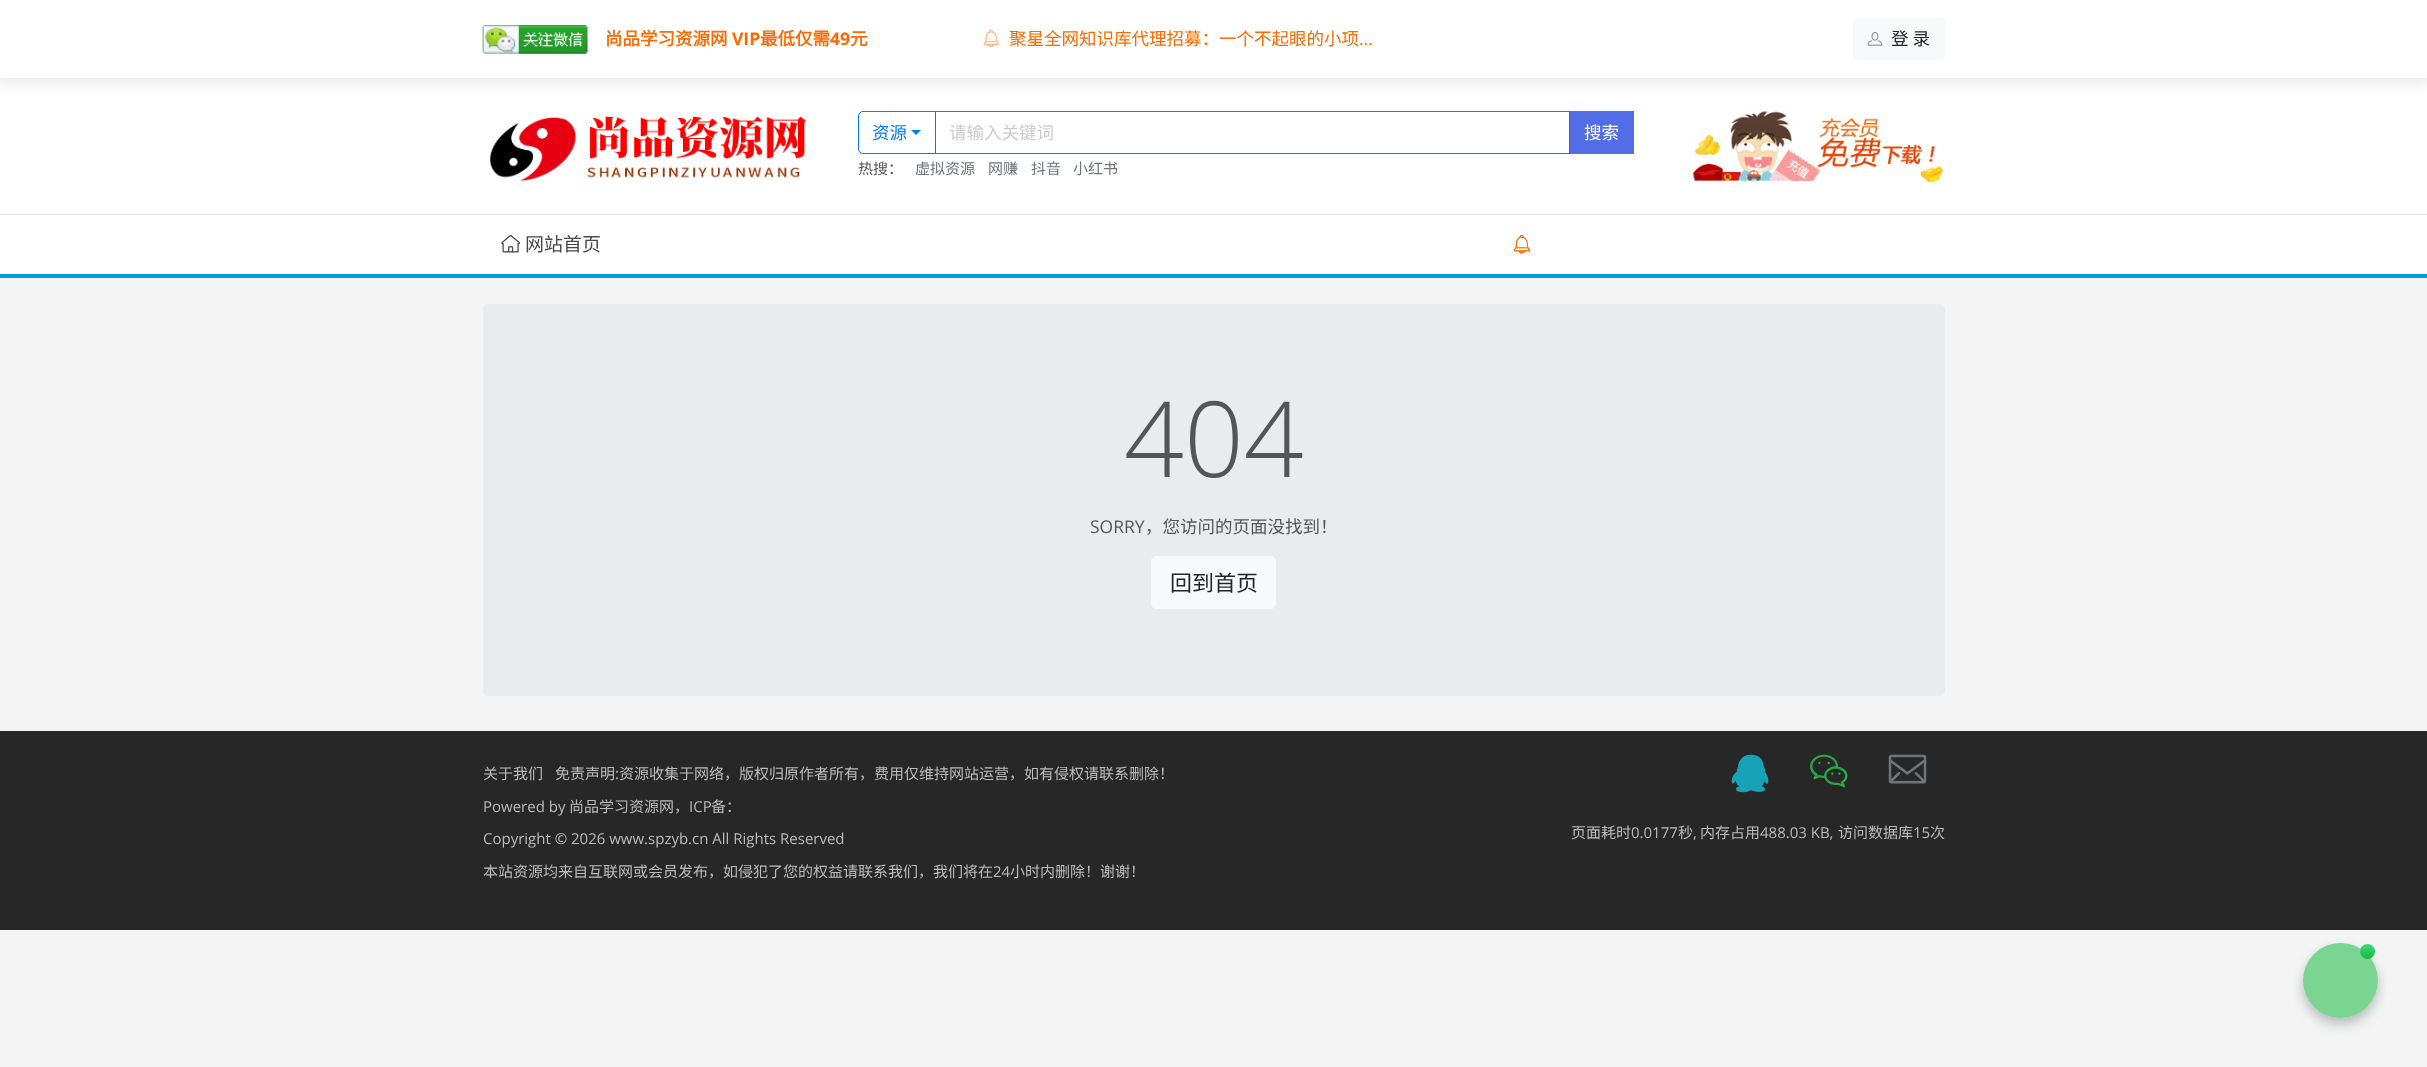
<svg xmlns="http://www.w3.org/2000/svg" width="2427" height="1067">
<defs>
<clipPath id="clip1"><path d="M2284 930h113v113h-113zm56.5 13c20.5 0 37.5 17 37.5 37.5c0 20.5-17 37.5-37.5 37.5c-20.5 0-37.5-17-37.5-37.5c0-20.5 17-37.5 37.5-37.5z" clip-rule="evenodd"/></clipPath>
<linearGradient id="g1" gradientUnits="userSpaceOnUse" x1="2368" y1="944" x2="2368" y2="959"><stop offset="0" stop-color="#38dc79"/><stop offset="1" stop-color="#1ab744"/></linearGradient>
</defs>
<rect width="100%" height="100%" fill="#f4f4f4"/>
<rect y="79" width="2427" height="195" fill="#fff"/>
<rect x="-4" width="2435" height="86" fill="#eee" filter="blur(6px)"/>
<rect width="2427" height="78" fill="#fff"/>
<image x="482" y="25" width="106" height="29" href="media/1.png"/>
<text x="605" y="45" style="font-family:Noto Sans CJK SC;font-size:17.5px;font-weight:bold;fill:#fe6a00">尚品学习资源网</text>
<text x="732" y="45" style="font-family:Open Sans;font-size:17.5px;font-weight:bold;fill:#fe6a00">VIP</text>
<text x="760" y="45" style="font-family:Noto Sans CJK SC;font-size:17.5px;font-weight:bold;fill:#fe6a00">最低仅需</text>
<text x="830" y="45" style="font-family:Open Sans;font-size:17.5px;font-weight:bold;fill:#fe6a00">49</text>
<text x="850" y="45" style="font-family:Noto Sans CJK SC;font-size:17.5px;font-weight:bold;fill:#fe6a00">元</text>
<image x="983" y="29" width="16" height="19" href="media/2.png"/>
<text x="1009" y="45" style="font-family:Noto Sans CJK SC;font-size:17.5px;fill:#fe6a00">聚星全网知识库代理招募：一个不起眼的小项</text>
<text x="1359" y="45" style="font-family:Open Sans;font-size:17.5px;fill:#fe6a00">...</text>
<rect x="1853" y="18" width="92" height="42" rx="5" fill="#f8f9fa"/>
<image x="1867" y="32" width="16" height="14" href="media/3.png"/>
<text x="1891" y="45" style="font-family:Noto Sans CJK SC;font-size:17.5px;fill:#212529">登 录</text>
<image x="489" y="116" width="318" height="66" href="media/4.png"/>
<rect x="935.5" y="111.5" width="634" height="42" fill="none" stroke="#007bff"/>
<path d="M863 111.5h72.5v42h-72.5c-2.5 0-4.5-2-4.5-4.5v-33c0-2.5 2-4.5 4.5-4.5z" fill="none" stroke="#007bff"/>
<text x="872" y="139" style="font-family:Noto Sans CJK SC;font-size:17.5px;fill:#007bff">资源</text>
<path d="M911 130h10l-5 5z" fill="#007bff"/>
<text x="949" y="139" style="font-family:Noto Sans CJK SC;font-size:17.5px;fill:#ccc">请输入关键词</text>
<rect x="1570" y="111" width="64" height="43" fill="#536de6"/>
<text x="1584" y="139" style="font-family:Noto Sans CJK SC;font-size:17.5px;fill:#fff">搜索</text>
<text x="858" y="174" style="font-family:Noto Sans CJK SC;font-size:15px;fill:#555">热搜：</text>
<text x="915" y="174" style="font-family:Noto Sans CJK SC;font-size:15px;fill:#6c757d">虚拟资源</text>
<text x="988" y="174" style="font-family:Noto Sans CJK SC;font-size:15px;fill:#6c757d">网赚</text>
<text x="1031" y="174" style="font-family:Noto Sans CJK SC;font-size:15px;fill:#6c757d">抖音</text>
<text x="1073" y="174" style="font-family:Noto Sans CJK SC;font-size:15px;fill:#6c757d">小红书</text>
<image x="1692" y="109" width="253" height="74" href="media/5.png"/>
<rect y="214" width="2427" height="1" fill="#e4e4e6"/>
<rect y="274" width="2427" height="4" fill="#0099e5"/>
<image x="501" y="234" width="19" height="19" href="media/6.png"/>
<text x="525" y="251" style="font-family:Noto Sans CJK SC;font-size:19px;fill:#48494d">网站首页</text>
<image x="1513" y="234" width="18" height="20" href="media/7.png"/>
<rect x="483" y="304" width="1462" height="392" rx="5" fill="#e9ecef"/>
<text x="1124" y="477" style="font-family:Open Sans;font-size:105px;font-weight:300;fill:#555">404</text>
<text x="1090" y="533" style="font-family:Open Sans;font-size:17.5px;fill:#555">SORRY</text>
<text x="1145" y="533" style="font-family:Noto Sans CJK SC;font-size:17.5px;fill:#555">，您访问的页面没找到！</text>
<rect x="1151.5" y="556.5" width="124" height="52" rx="4.5" fill="#f8f9fa" stroke="#f8f9fa"/>
<text x="1170" y="591" style="font-family:Noto Sans CJK SC;font-size:22px;fill:#212529">回到首页</text>
<rect y="731" width="2427" height="199" fill="#272727"/>
<text x="483" y="779" style="font-family:Noto Sans CJK SC;font-size:15px;fill:#bbb">关于我们</text>
<text x="555" y="779" style="font-family:Noto Sans CJK SC;font-size:15px;fill:#bbb">免责声明</text>
<text x="615" y="779" style="font-family:Open Sans;font-size:15px;fill:#bbb">:</text>
<text x="619" y="779" style="font-family:Noto Sans CJK SC;font-size:15px;fill:#bbb">资源收集于网络，版权归原作者所有，费用仅维持网站运营，如有侵权请联系删除！</text>
<text x="483" y="812" style="font-family:Open Sans;font-size:15px;fill:#bbb">Powered by</text>
<text x="569" y="812" style="font-family:Noto Sans CJK SC;font-size:15px;fill:#bbb">尚品学习资源网，</text>
<text x="689" y="812" style="font-family:Open Sans;font-size:15px;fill:#bbb">ICP</text>
<text x="711" y="812" style="font-family:Noto Sans CJK SC;font-size:15px;fill:#bbb">备：</text>
<text x="483" y="844" style="font-family:Open Sans;font-size:15px;fill:#bbb">Copyright © 2026 www.spzyb.cn All Rights Reserved</text>
<text x="483" y="877" style="font-family:Noto Sans CJK SC;font-size:15px;fill:#bbb">本站资源均来自互联网或会员发布，如侵犯了您的权益请联系我们，我们将在</text>
<text x="993" y="877" style="font-family:Open Sans;font-size:15px;fill:#bbb">24</text>
<text x="1010" y="877" style="font-family:Noto Sans CJK SC;font-size:15px;fill:#bbb">小时内删除！谢谢！</text>
<image x="1731" y="754" width="38" height="39" href="media/8.png"/>
<image x="1810" y="754" width="38" height="34" href="media/9.png"/>
<image x="1888" y="754" width="39" height="30" href="media/10.png"/>
<text x="1571" y="838" style="font-family:Noto Sans CJK SC;font-size:15px;fill:#bbb">页面耗时</text>
<text x="1631" y="838" style="font-family:Open Sans;font-size:15px;fill:#bbb">0.0177</text>
<text x="1678" y="838" style="font-family:Noto Sans CJK SC;font-size:15px;fill:#bbb">秒</text>
<text x="1693" y="838" style="font-family:Open Sans;font-size:15px;fill:#bbb">,</text>
<text x="1700" y="838" style="font-family:Noto Sans CJK SC;font-size:15px;fill:#bbb">内存占用</text>
<text x="1760" y="838" style="font-family:Open Sans;font-size:15px;fill:#bbb">488.03 KB,</text>
<text x="1838" y="838" style="font-family:Noto Sans CJK SC;font-size:15px;fill:#bbb">访问数据库</text>
<text x="1913" y="838" style="font-family:Open Sans;font-size:15px;fill:#bbb">15</text>
<text x="1930" y="838" style="font-family:Noto Sans CJK SC;font-size:15px;fill:#bbb">次</text>
<g clip-path="url(#clip1)">
<rect x="2303" y="949" width="75" height="75" rx="37.5" fill="#2332384d" filter="blur(6px)"/>
</g>
<circle cx="2340.5" cy="980.5" r="37.5" fill="#ffffffd9"/>
<circle cx="2340.5" cy="980.5" r="37.5" fill="#1ab74440"/>
<circle cx="2340.5" cy="980.5" r="37.5" fill="#1ab74440"/>
<circle cx="2340.5" cy="980.5" r="37.5" fill="#1ab74440"/>
<circle cx="2367.5" cy="951.5" r="7.5" fill="url(#g1)"/>
</svg>
